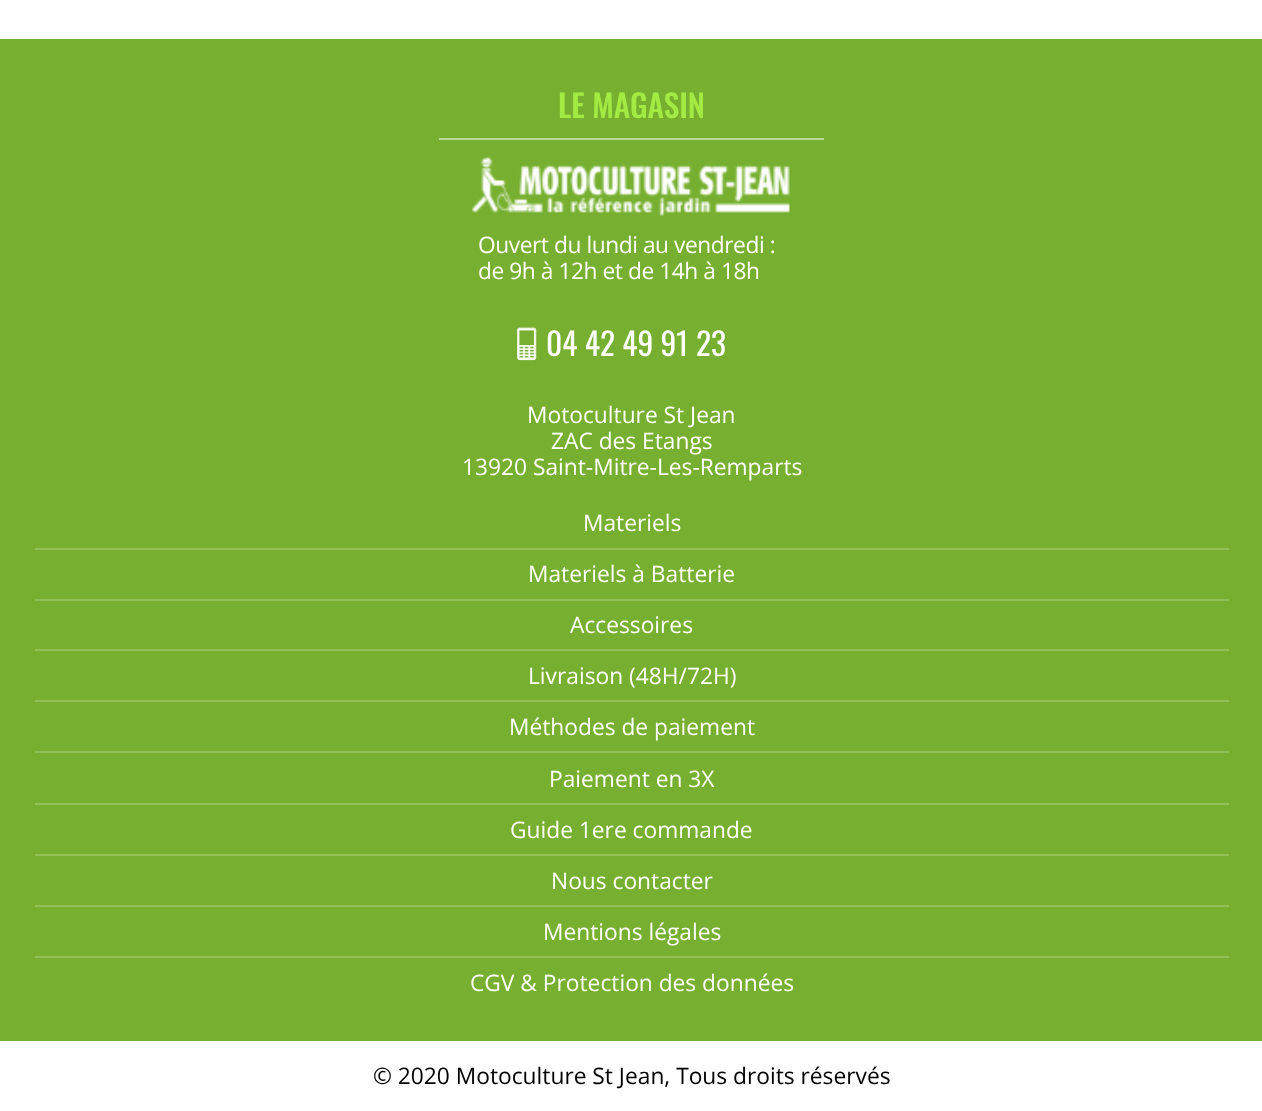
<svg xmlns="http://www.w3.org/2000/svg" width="1262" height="1111">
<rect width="100%" height="100%" fill="#fff"/>
<rect y="39" width="1262" height="1002" fill="#77b030"/>
<rect x="439" y="138" width="385" height="2" fill="#bbd898"/>
<text x="558" y="118" style="font-family:Oswald;font-size:31.5px;font-weight:500;fill:#a5ea43">LE MAGASIN</text>
<image x="472" y="157" width="318" height="59" href="media/1.png"/>
<text x="478" y="253" style="font-family:Open Sans;font-size:22.75px;letter-spacing:-0.45px;fill:#fff">Ouvert du lundi au vendredi :</text>
<text x="478" y="279" style="font-family:Open Sans;font-size:22.75px;letter-spacing:-0.45px;fill:#fff">de 9h à 12h et de 14h à 18h</text>
<image x="517" y="327" width="20" height="34" href="media/2.png"/>
<text x="546" y="356" style="font-family:Oswald;font-size:31.5px;fill:#fff">04 42 49 91 23</text>
<text x="527" y="423" style="font-family:Open Sans;font-size:22.75px;fill:#fff">Motoculture St Jean</text>
<text x="551" y="449" style="font-family:Open Sans;font-size:22.75px;fill:#fff">ZAC des Etangs</text>
<text x="462" y="475" style="font-family:Open Sans;font-size:22.75px;fill:#fff">13920 Saint-Mitre-Les-Remparts</text>
<rect x="35" y="548" width="1194" height="2" fill="#92c059"/>
<text x="583" y="531" style="font-family:Open Sans;font-size:22.75px;fill:#fff">Materiels</text>
<rect x="35" y="599" width="1194" height="2" fill="#92c059"/>
<text x="528" y="582" style="font-family:Open Sans;font-size:22.75px;fill:#fff">Materiels à Batterie</text>
<rect x="35" y="649" width="1194" height="2" fill="#92c059"/>
<text x="570" y="633" style="font-family:Open Sans;font-size:22.75px;fill:#fff">Accessoires</text>
<rect x="35" y="700" width="1194" height="2" fill="#92c059"/>
<text x="528" y="684" style="font-family:Open Sans;font-size:22.75px;fill:#fff">Livraison (48H/72H)</text>
<rect x="35" y="751" width="1194" height="2" fill="#92c059"/>
<text x="509" y="735" style="font-family:Open Sans;font-size:22.75px;fill:#fff">Méthodes de paiement</text>
<rect x="35" y="803" width="1194" height="2" fill="#92c059"/>
<text x="549" y="787" style="font-family:Open Sans;font-size:22.75px;fill:#fff">Paiement en 3X</text>
<rect x="35" y="854" width="1194" height="2" fill="#92c059"/>
<text x="510" y="838" style="font-family:Open Sans;font-size:22.75px;fill:#fff">Guide 1ere commande</text>
<rect x="35" y="905" width="1194" height="2" fill="#92c059"/>
<text x="551" y="889" style="font-family:Open Sans;font-size:22.75px;fill:#fff">Nous contacter</text>
<rect x="35" y="956" width="1194" height="2" fill="#92c059"/>
<text x="543" y="940" style="font-family:Open Sans;font-size:22.75px;fill:#fff">Mentions légales</text>
<text x="470" y="991" style="font-family:Open Sans;font-size:22.75px;fill:#fff">CGV &amp; Protection des données</text>
<text x="373" y="1084" style="font-family:Open Sans;font-size:22.75px;fill:#000">© 2020 Motoculture St Jean, Tous droits réservés</text>
</svg>
